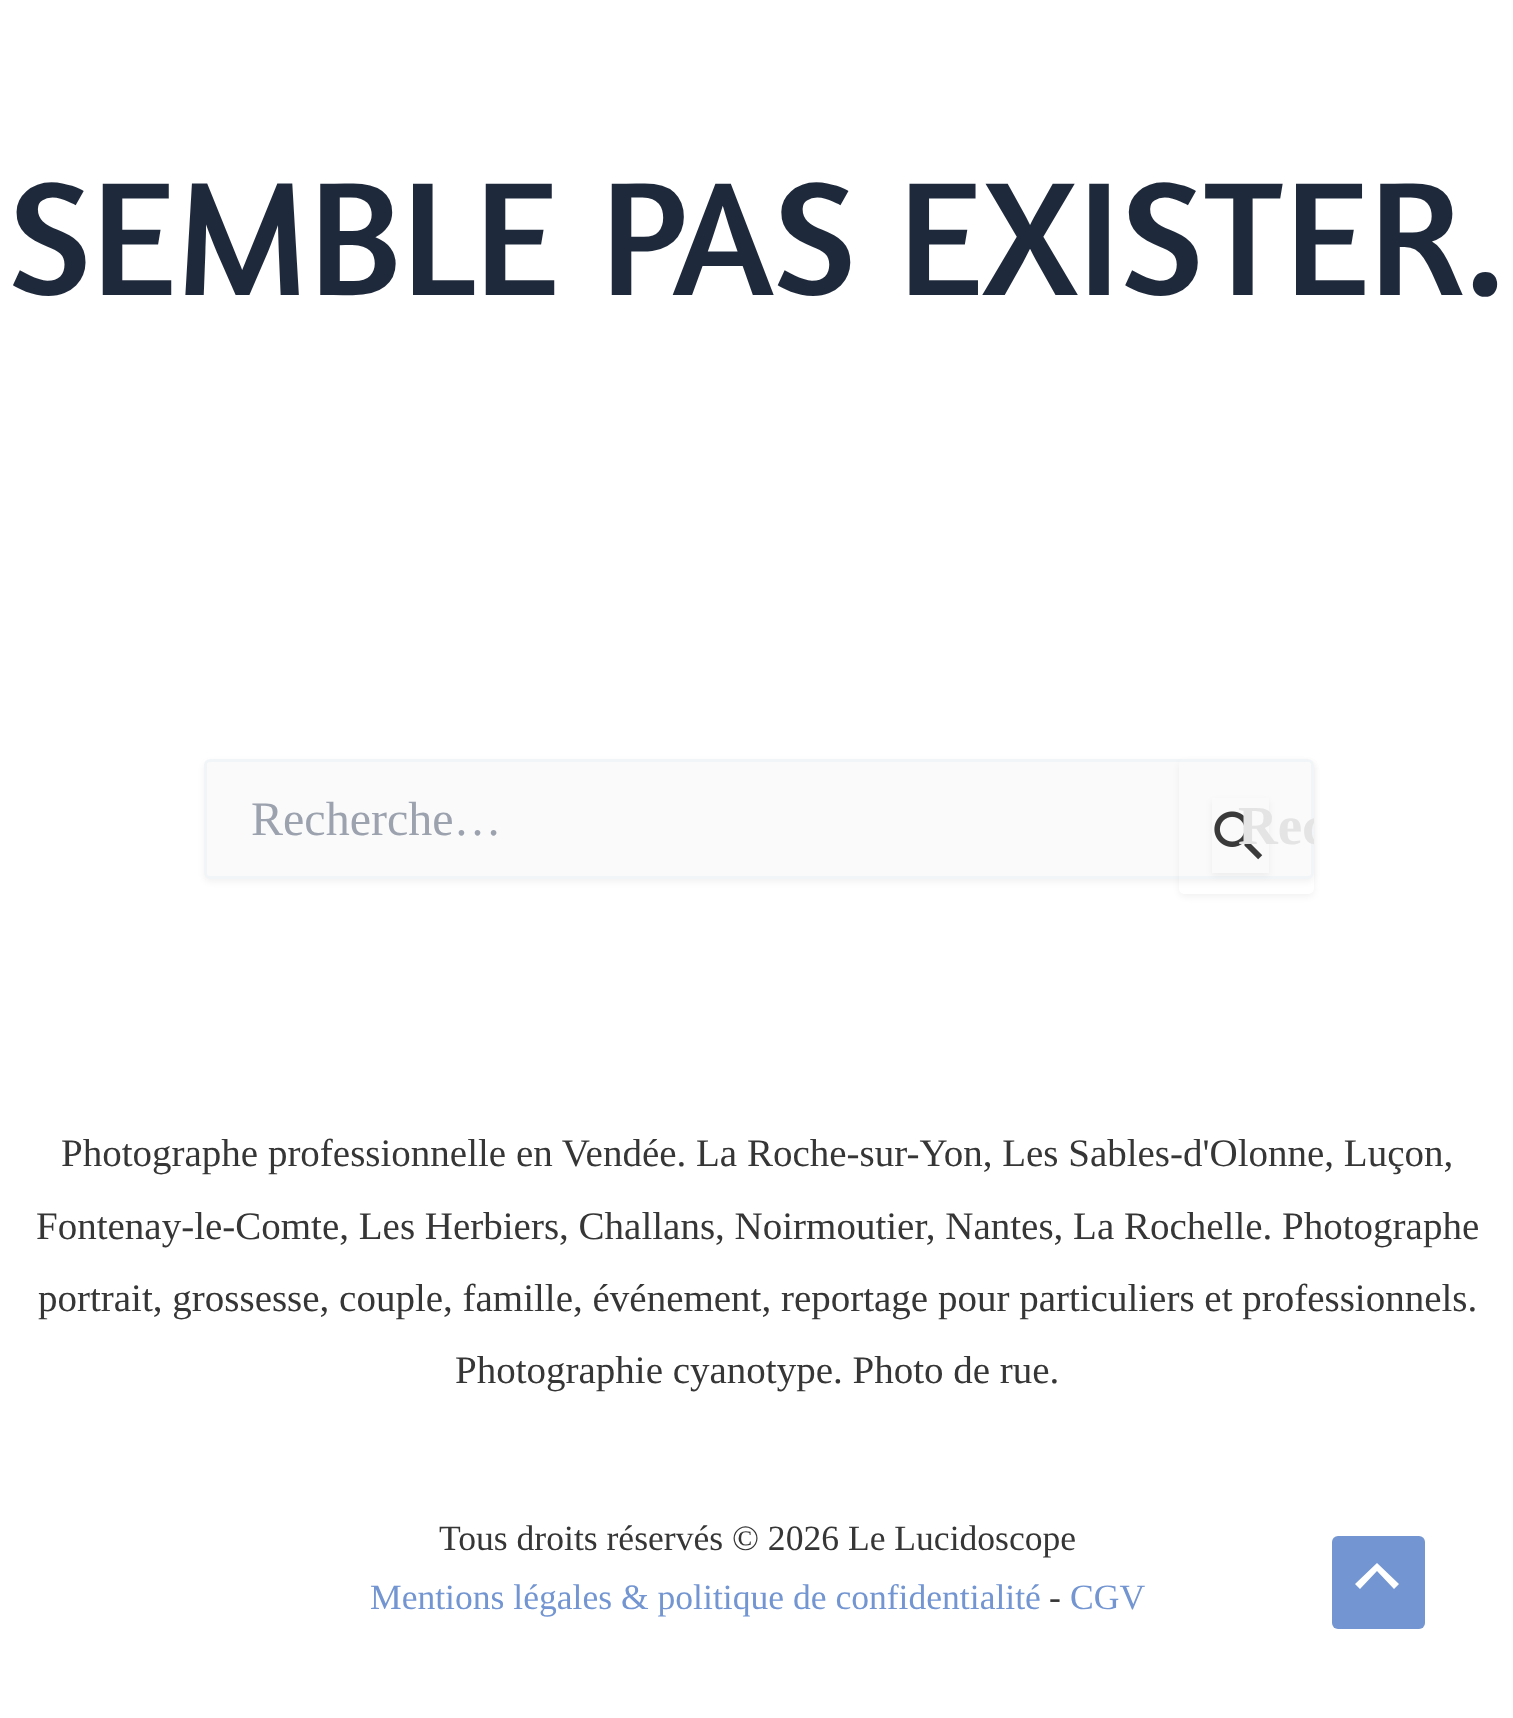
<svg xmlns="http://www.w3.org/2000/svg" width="1513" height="1718">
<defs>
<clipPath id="clip1"><path d="M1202 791h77v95h-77zm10 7h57v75h-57z" clip-rule="evenodd"/></clipPath>
<clipPath id="clip2"><path d="M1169 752h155v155h-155zm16 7h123c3.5 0 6 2.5 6 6v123c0 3.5-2.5 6-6 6h-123c-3.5 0-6-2.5-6-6v-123c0-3.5 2.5-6 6-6z" clip-rule="evenodd"/></clipPath>
<clipPath id="clip3"><rect x="1179" y="759" width="135" height="135" rx="6"/></clipPath>
</defs>
<rect width="100%" height="100%" fill="#fff"/>
<text x="8" y="295" style="font-family:Amaranth;font-size:164.25px;fill:#1e293b">SEMBLE PAS EXISTER.</text>
<rect x="204" y="762" width="1110" height="120" rx="6" fill="#0000000d" filter="blur(3px)"/>
<rect x="205.5" y="760.5" width="1107" height="117" rx="4.5" fill="#fafafa" stroke="#f2f5f7" stroke-width="3"/>
<text x="251" y="835" style="font-family:Liberation Serif;font-size:48px;fill:#9ca3af">Recherche…</text>
<g clip-path="url(#clip1)">
<rect x="1212" y="801" width="57" height="75" fill="#0000000d" filter="blur(3px)"/>
</g>
<image x="1214" y="811" width="49" height="49" href="media/1.png"/>
<g clip-path="url(#clip2)">
<rect x="1179" y="762" width="135" height="135" rx="6" fill="#0000000d" filter="blur(3px)"/>
</g>
<g clip-path="url(#clip3)">
<text x="1238" y="844" style="font-family:Liberation Serif;font-size:55px;font-weight:bold;fill:#e4e4e4">Rec</text>
</g>
<text x="61" y="1166" style="font-family:Liberation Serif;font-size:39px;fill:#363636">Photographe professionnelle en Vendée. La Roche-sur-Yon, Les Sables-d'Olonne, Luçon,</text>
<text x="36" y="1239" style="font-family:Liberation Serif;font-size:39px;fill:#363636">Fontenay-le-Comte, Les Herbiers, Challans, Noirmoutier, Nantes, La Rochelle. Photographe</text>
<text x="38" y="1311" style="font-family:Liberation Serif;font-size:39px;fill:#363636">portrait, grossesse, couple, famille, événement, reportage pour particuliers et professionnels.</text>
<text x="455" y="1383" style="font-family:Liberation Serif;font-size:39px;fill:#363636">Photographie cyanotype. Photo de rue.</text>
<text x="439" y="1550" style="font-family:Liberation Serif;font-size:35.6px;fill:#363636">Tous droits réservés © 2026 Le Lucidoscope</text>
<text x="370" y="1609" style="font-family:Liberation Serif;font-size:35.6px;fill:#7395d1">Mentions légales &amp; politique de confidentialité</text>
<text x="1049" y="1609" style="font-family:Liberation Serif;font-size:35.6px;fill:#363636">-</text>
<text x="1070" y="1609" style="font-family:Liberation Serif;font-size:35.6px;fill:#7395d1">CGV</text>
<rect x="1332" y="1536" width="93" height="93" rx="6" fill="#7395d1"/>
<path d="M1399 1584l-22-21l-22 21l5 5l17-18l17 18z" fill="#fff"/>
</svg>
